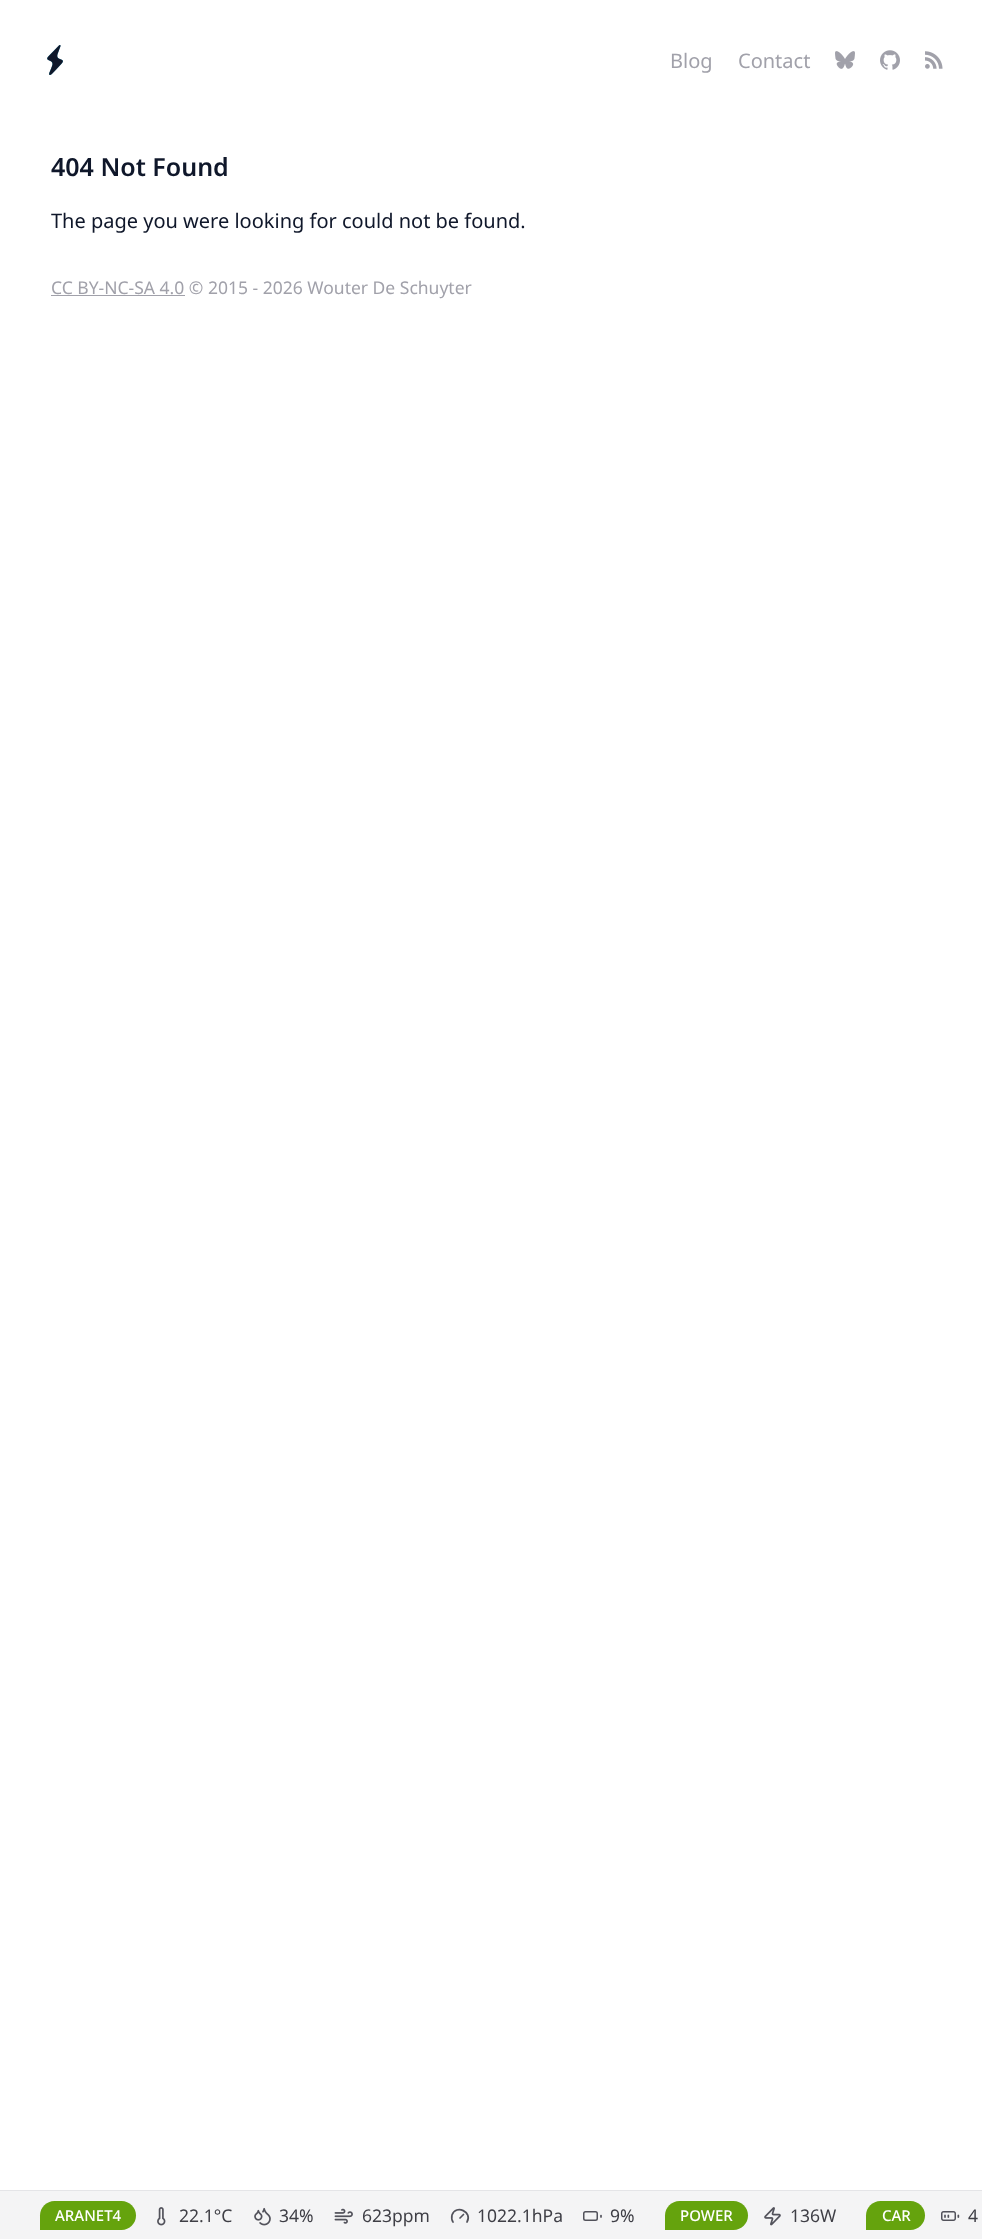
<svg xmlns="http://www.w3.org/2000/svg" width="982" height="2239">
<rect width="100%" height="100%" fill="#fff"/>
<image x="47" y="45" width="16" height="30" href="media/1.png"/>
<image x="47" y="45" width="16" height="30" href="media/2.png"/>
<image x="47" y="45" width="16" height="30" href="media/3.png"/>
<text x="670" y="68" style="font-family:Noto Sans;font-size:20px;fill:#a1a1aa">Blog</text>
<text x="738" y="68" style="font-family:Noto Sans;font-size:20px;fill:#a1a1aa">Contact</text>
<image x="835" y="51" width="20" height="18" href="media/4.png"/>
<image x="880" y="50" width="20" height="20" href="media/5.png"/>
<image x="925" y="51" width="18" height="18" href="media/6.png"/>
<text x="51" y="176" style="font-family:Noto Sans;font-size:25px;font-weight:600;fill:#0f172a">404 Not Found</text>
<text x="51" y="228" style="font-family:Noto Sans;font-size:20px;fill:#0f172a">The page you were looking for could not be found.</text>
<rect x="51" y="295" width="134" height="1" fill="#a1a1aa"/>
<text x="51" y="294" style="font-family:Noto Sans;font-size:17.5px;fill:#a1a1aa">CC BY-NC-SA 4.0 © 2015 - 2026 Wouter De Schuyter</text>
<rect y="2191" width="982" height="48" fill="#f4f4f5"/>
<rect y="2190" width="982" height="1" fill="#e4e4e7"/>
<path d="M54.5 2201h67c8 0 14.5 6.5 14.5 14.5c0 8-6.5 14.5-14.5 14.5h-81.5v-14.5c0-8 6.5-14.5 14.5-14.5z" fill="#65a30d"/>
<text x="55" y="2221" style="font-family:Noto Sans;font-size:15px;font-weight:500;fill:#fff">ARANET4</text>
<image x="157" y="2207" width="9" height="19" href="media/7.png"/>
<text x="179" y="2222" style="font-family:Noto Sans;font-size:17.5px;fill:#3f3f46">22.1°C</text>
<image x="254" y="2207" width="17" height="19" href="media/8.png"/>
<text x="279" y="2222" style="font-family:Noto Sans;font-size:17.5px;fill:#3f3f46">34%</text>
<image x="334" y="2208" width="19" height="16" href="media/9.png"/>
<text x="362" y="2222" style="font-family:Noto Sans;font-size:17.5px;fill:#3f3f46">623ppm</text>
<path d="M460 2218l3.5-3.5m-10.5 7.5c-1.5-2-1.5-4.5-1-7c4-11 21-3 15 7" fill="none" stroke="#52525b" stroke-width="1.7" stroke-linecap="round" stroke-linejoin="round"/>
<text x="477" y="2222" style="font-family:Noto Sans;font-size:17.5px;fill:#3f3f46">1022.1hPa</text>
<rect x="583.75" y="2211.75" width="13.5" height="8.5" rx="1.75" fill="none" stroke="#52525b" stroke-width="1.5"/>
<path d="M601 2215.5v1.5" fill="none" stroke="#52525b" stroke-width="1.7" stroke-linecap="round" stroke-linejoin="round"/>
<text x="610" y="2222" style="font-family:Noto Sans;font-size:17.5px;fill:#3f3f46">9%</text>
<path d="M679.5 2201h54c8 0 14.5 6.5 14.5 14.5c0 8-6.5 14.5-14.5 14.5h-68.5v-14.5c0-8 6.5-14.5 14.5-14.5z" fill="#65a30d"/>
<text x="680" y="2221" style="font-family:Noto Sans;font-size:15px;font-weight:500;fill:#fff">POWER</text>
<image x="764" y="2207" width="17" height="19" href="media/10.png"/>
<text x="790" y="2222" style="font-family:Noto Sans;font-size:17.5px;fill:#3f3f46">136W</text>
<path d="M880.5 2201h30c8 0 14.5 6.5 14.5 14.5c0 8-6.5 14.5-14.5 14.5h-44.5v-14.5c0-8 6.5-14.5 14.5-14.5z" fill="#65a30d"/>
<text x="882" y="2221" style="font-family:Noto Sans;font-size:15px;font-weight:500;fill:#fff">CAR</text>
<image x="941" y="2211" width="19" height="10" href="media/11.png"/>
<text x="968" y="2222" style="font-family:Noto Sans;font-size:17.5px;fill:#3f3f46">4</text>
</svg>
